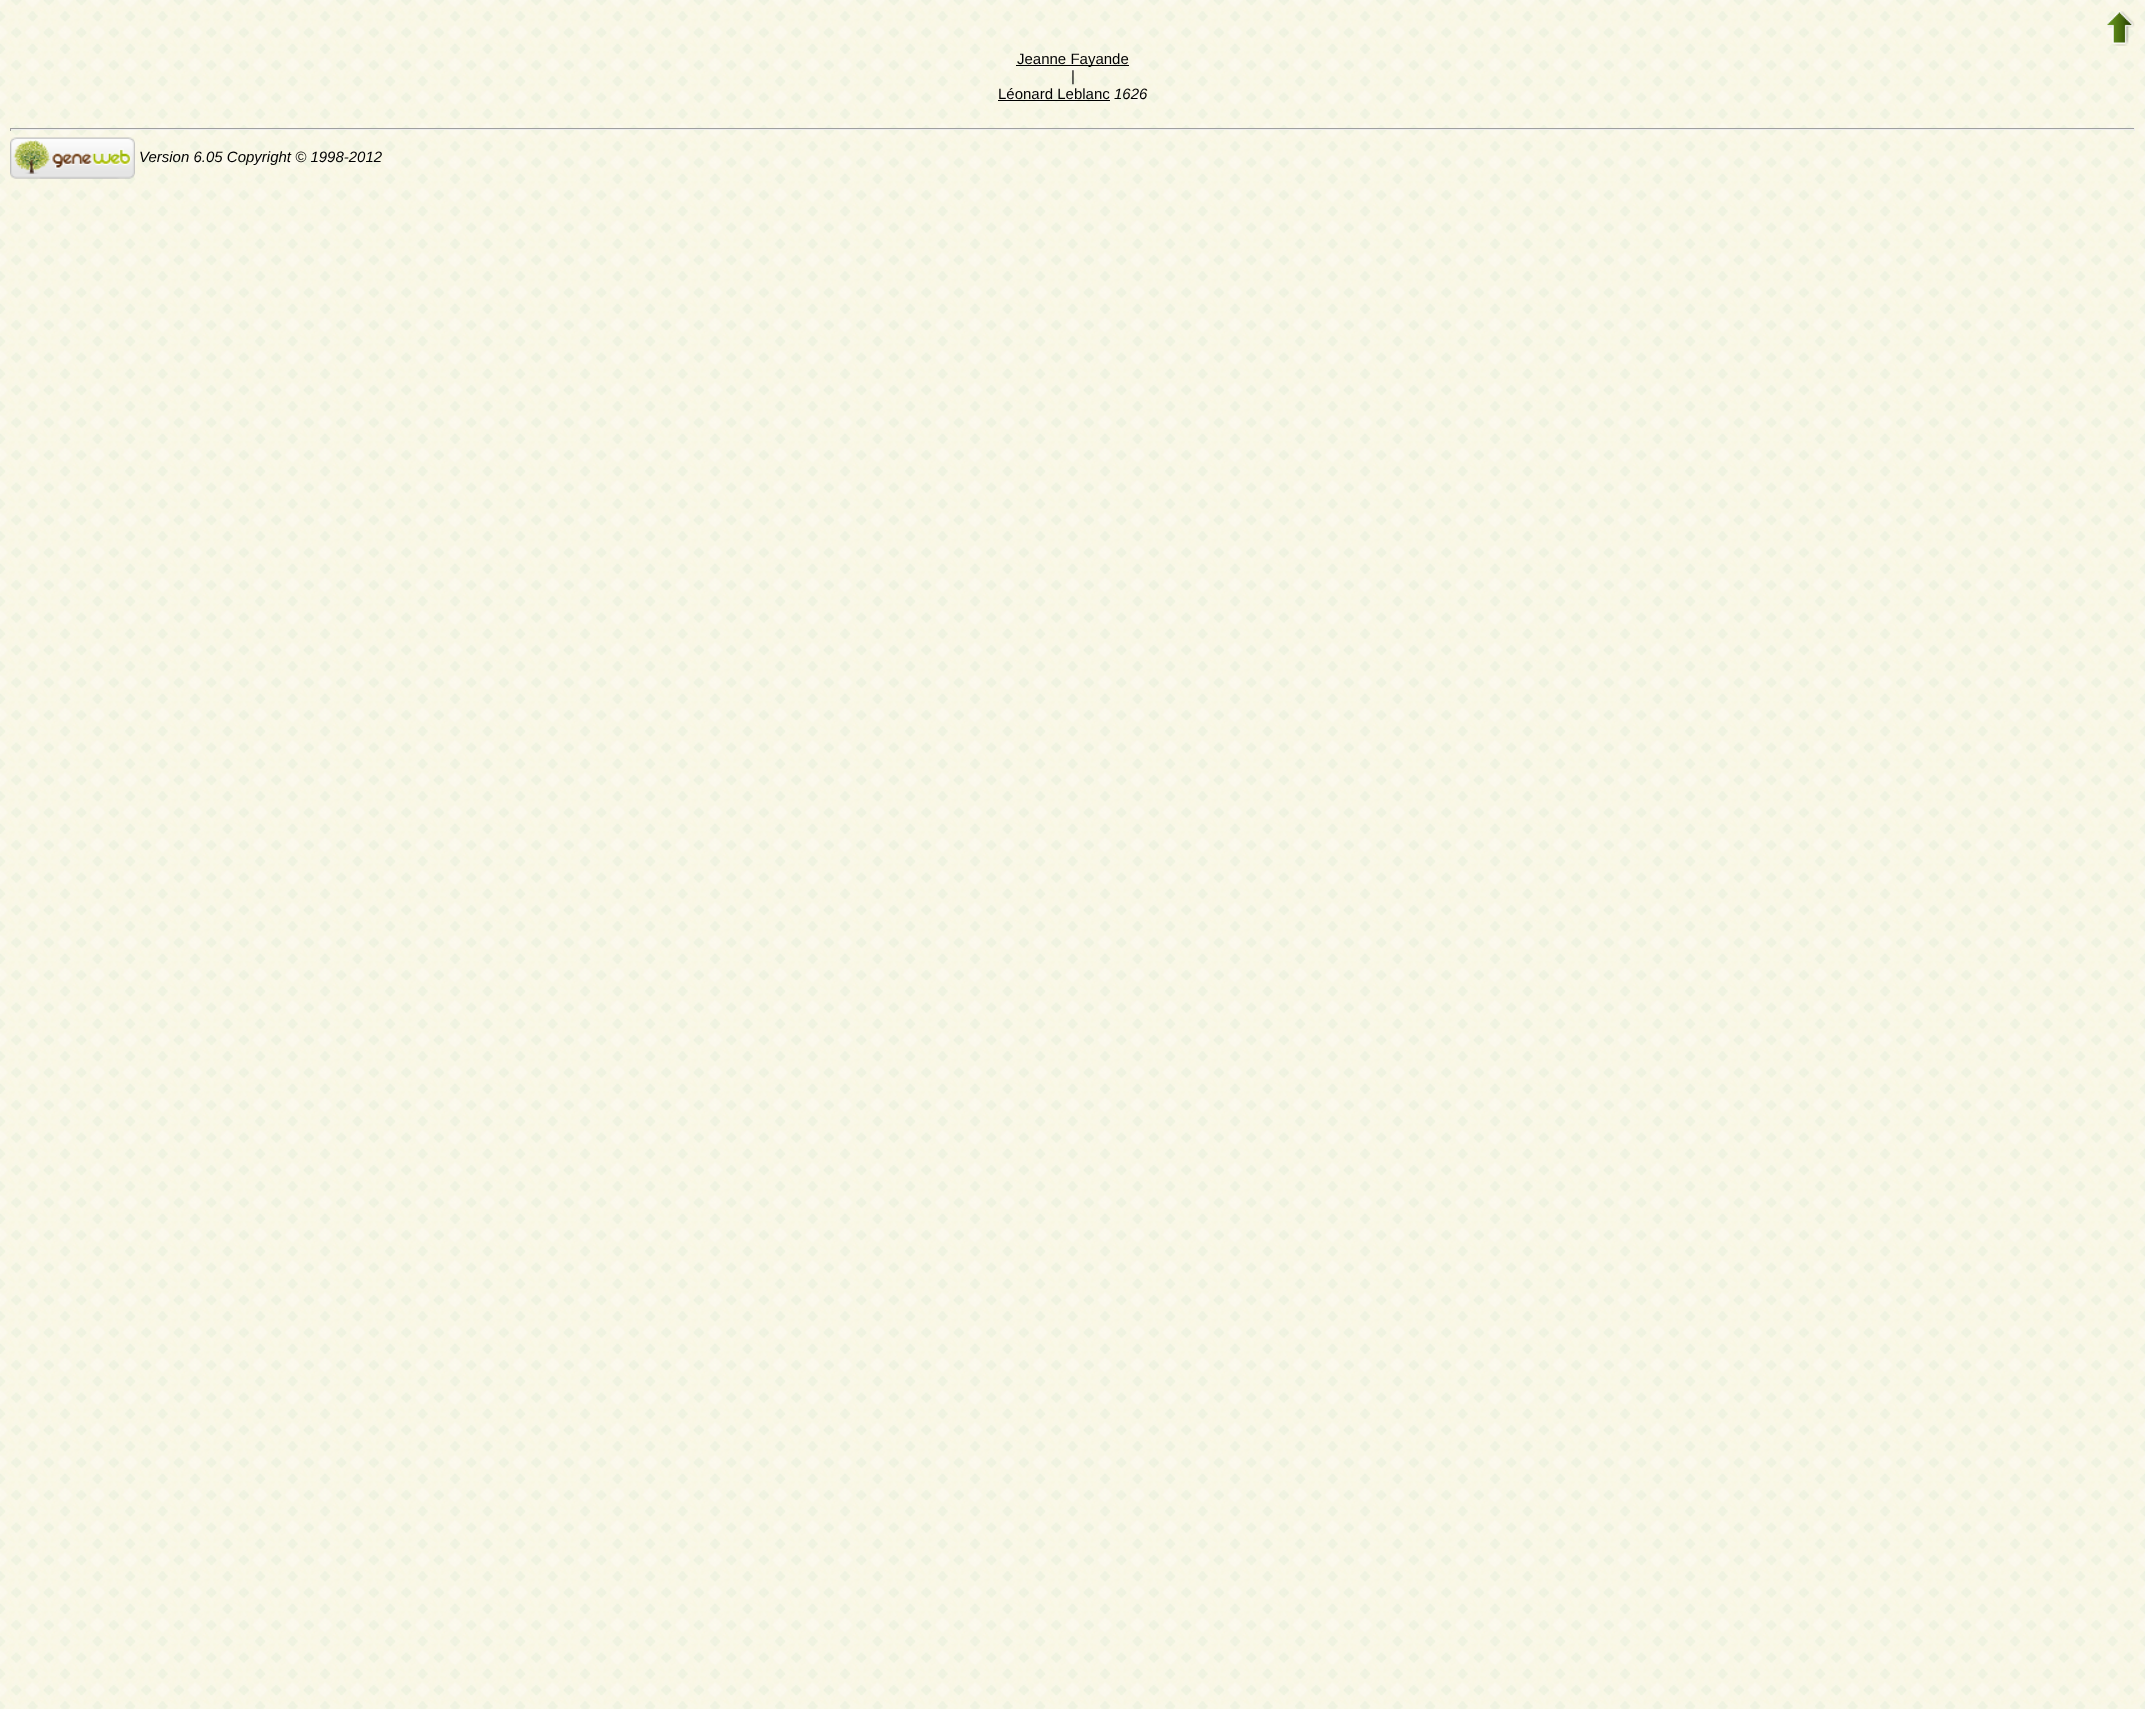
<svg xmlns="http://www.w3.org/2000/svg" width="2145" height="1709">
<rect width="100%" height="100%" fill="#fff"/>
<image x="0" y="0" width="2145" height="1709" href="media/1.png"/>
<image x="2107" y="11" width="28" height="35" href="media/2.png"/>
<rect x="1016" y="65" width="113" height="1" fill="#000"/>
<text x="1017" y="64" style="font-family:Liberation Sans;font-size:15px;fill:#000">Jeanne Fayande</text>
<text x="1071" y="81" style="font-family:Liberation Sans;font-size:15px;fill:#000">|</text>
<text x="998" y="99" style="font-family:Liberation Sans;font-size:15px;fill:#000">Léonard Leblanc</text>
<rect x="998" y="100" width="112" height="1" fill="#000"/>
<text x="1114" y="99" style="font-family:Liberation Sans;font-size:15px;font-style:italic;fill:#000">1626</text>
<rect x="10" y="128" width="2125" height="1" fill="#9f9f9f"/>
<rect x="2134" y="128" width="1" height="3" fill="#eee"/>
<rect x="10" y="129" width="2125" height="1" fill="#eee"/>
<rect x="10" y="128" width="1" height="3" fill="#9f9f9f"/>
<image x="10" y="137" width="125" height="42" href="media/3.png"/>
<text x="139" y="162" style="font-family:Liberation Sans;font-size:15px;font-style:italic;fill:#000">Version 6.05 Copyright © 1998-2012</text>
</svg>
